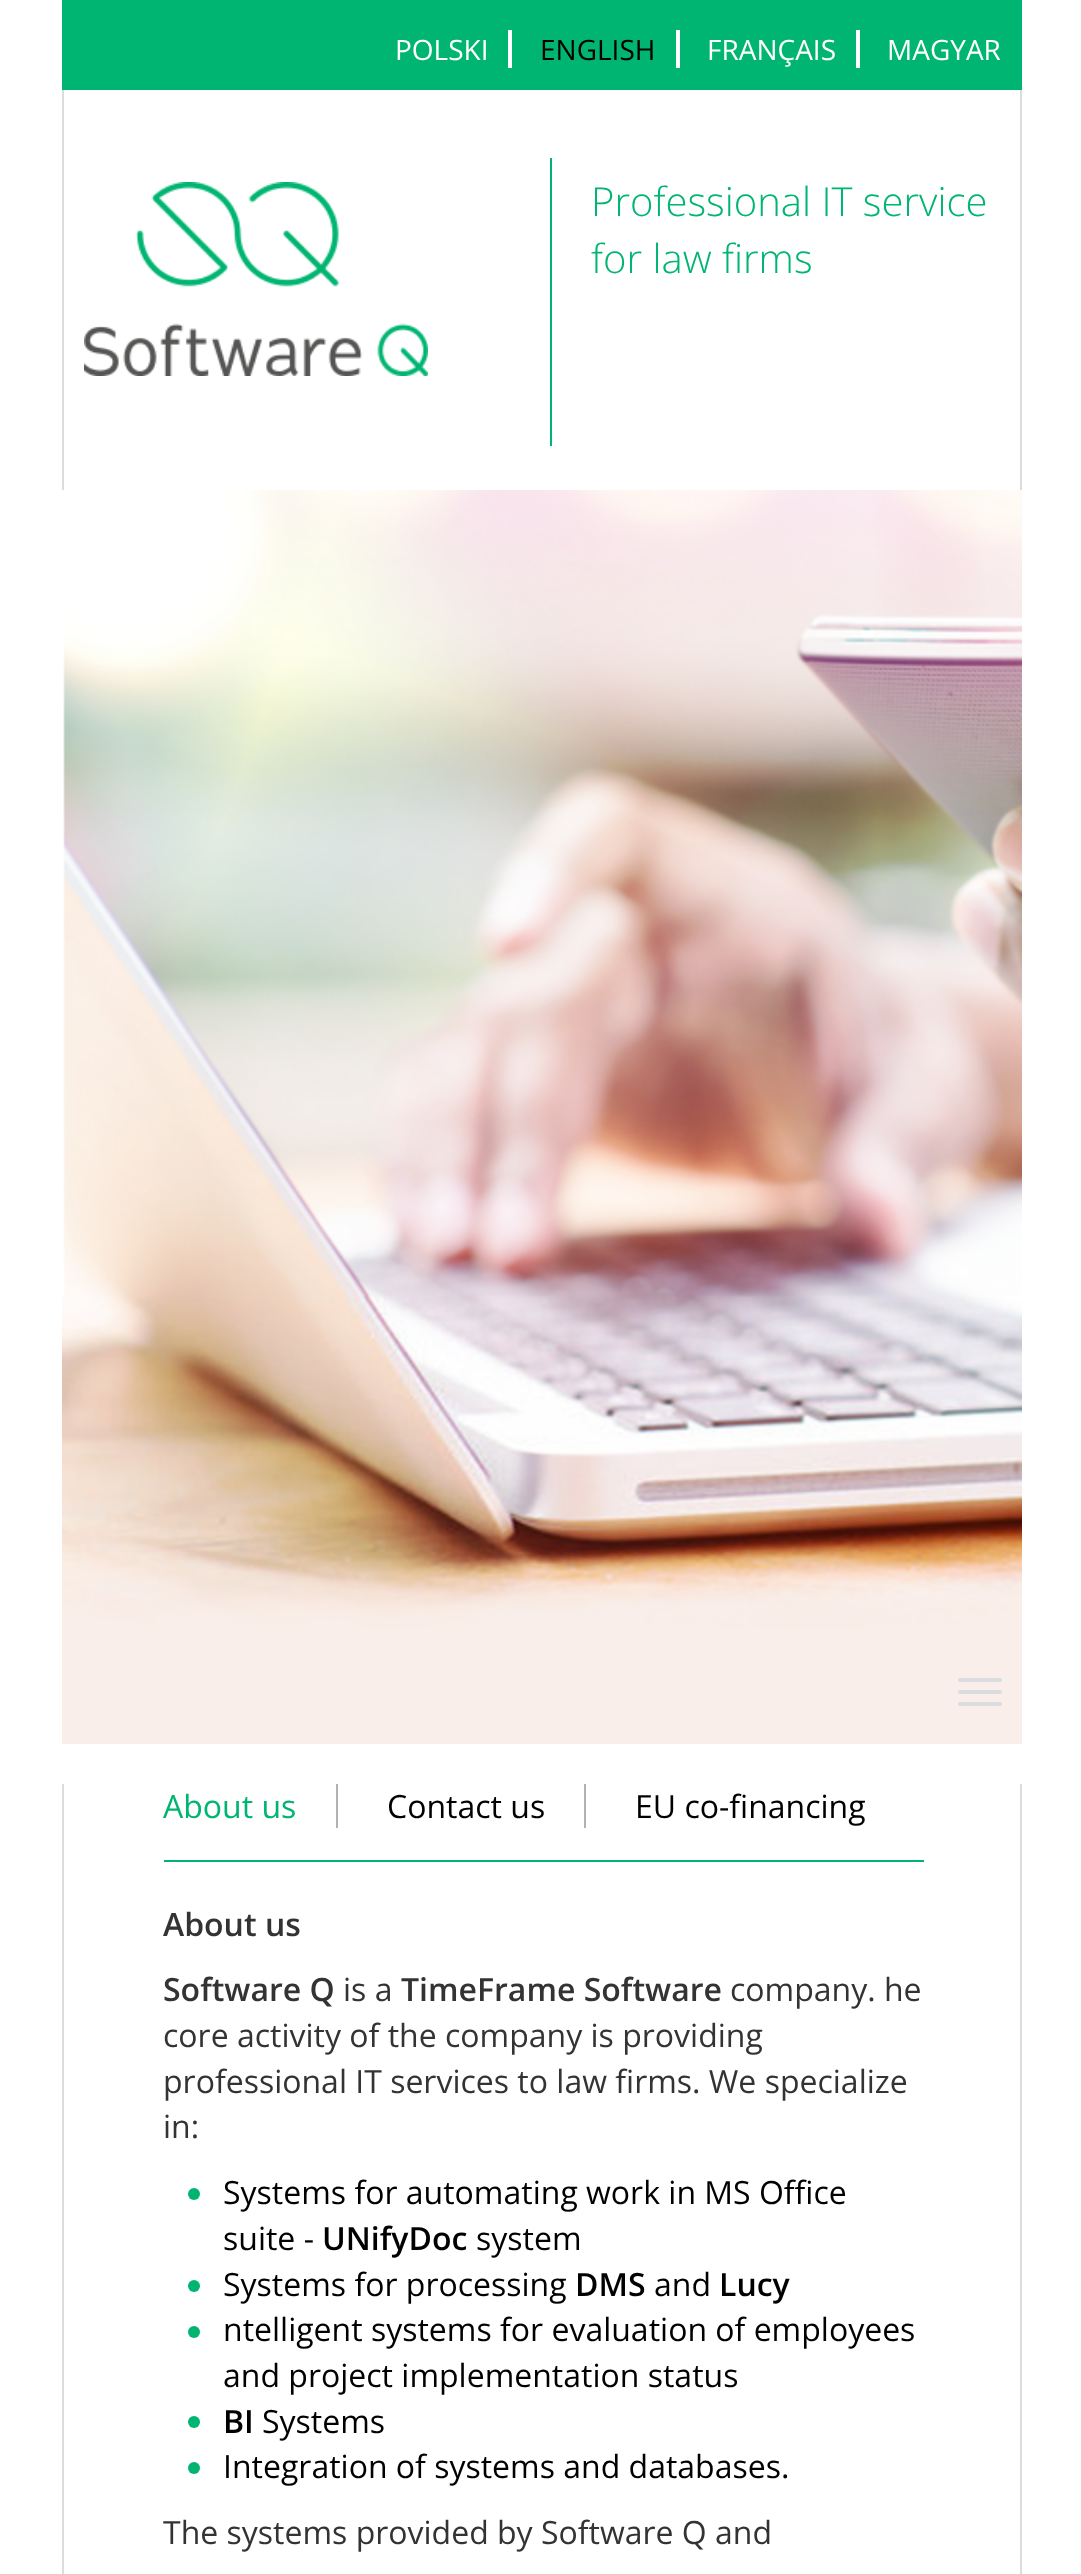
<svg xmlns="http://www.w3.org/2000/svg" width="1081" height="2574">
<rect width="100%" height="100%" fill="#fff"/>
<rect x="62" width="960" height="90" fill="#00b571"/>
<text x="395" y="60" style="font-family:Open Sans;font-size:28px;fill:#fff">POLSKI</text>
<rect x="508" y="30" width="4" height="38" fill="#fff"/>
<text x="540" y="60" style="font-family:Open Sans;font-size:28px;fill:#000">ENGLISH</text>
<rect x="676" y="30" width="4" height="38" fill="#fff"/>
<text x="707" y="60" style="font-family:Open Sans;font-size:28px;fill:#fff">FRANÇAIS</text>
<rect x="856" y="30" width="4" height="38" fill="#fff"/>
<text x="887" y="60" style="font-family:Open Sans;font-size:28px;fill:#fff">MAGYAR</text>
<rect x="1020" y="90" width="2" height="400" fill="#dadcde"/>
<rect x="62" y="90" width="2" height="400" fill="#dadcde"/>
<image x="84" y="182" width="344" height="194" href="media/1.png"/>
<rect x="550" y="158" width="2" height="288" fill="#00b571"/>
<text x="591" y="216" style="font-family:Open Sans;font-size:40px;font-weight:300;fill:#00b571">Professional IT service</text>
<text x="591" y="273" style="font-family:Open Sans;font-size:40px;font-weight:300;fill:#00b571">for law firms</text>
<image x="62" y="490" width="960" height="1150" href="media/2.png"/>
<rect x="62" y="1640" width="960" height="104" fill="#f9eee9"/>
<rect x="958" y="1678" width="44" height="4" rx="2" fill="#dadcde"/>
<rect x="958" y="1690" width="44" height="4" rx="2" fill="#dadcde"/>
<rect x="958" y="1702" width="44" height="4" rx="2" fill="#dadcde"/>
<rect x="1020" y="1784" width="2" height="790" fill="#dadcde"/>
<rect x="62" y="1784" width="2" height="790" fill="#dadcde"/>
<rect x="164" y="1860" width="760" height="2" fill="#00b571"/>
<text x="163" y="1818" style="font-family:Open Sans;font-size:32px;fill:#00b571">About us</text>
<rect x="336" y="1784" width="2" height="44" fill="#b2b2b2"/>
<text x="387" y="1818" style="font-family:Open Sans;font-size:32px;fill:#000">Contact us</text>
<rect x="584" y="1784" width="2" height="44" fill="#b2b2b2"/>
<text x="635" y="1818" style="font-family:Open Sans;font-size:32px;fill:#000">EU co-financing</text>
<text x="163" y="1936" style="font-family:Open Sans;font-size:32px;font-weight:600;fill:#333">About us</text>
<text x="163" y="2001" style="font-family:Open Sans;font-size:32px;font-weight:600;fill:#333">Software Q</text>
<text x="343" y="2001" style="font-family:Open Sans;font-size:32px;fill:#333">is a</text>
<text x="401" y="2001" style="font-family:Open Sans;font-size:32px;font-weight:600;fill:#333">TimeFrame Software</text>
<text x="730" y="2001" style="font-family:Open Sans;font-size:32px;fill:#333">company. he</text>
<text x="163" y="2047" style="font-family:Open Sans;font-size:32px;fill:#333">core activity of the company is providing</text>
<text x="163" y="2093" style="font-family:Open Sans;font-size:32px;fill:#333">professional IT services to law firms. We specialize</text>
<text x="163" y="2138" style="font-family:Open Sans;font-size:32px;fill:#333">in:</text>
<circle cx="194" cy="2194" r="6" fill="#00b571"/>
<text x="223" y="2204" style="font-family:Open Sans;font-size:32px;fill:#000">Systems for automating work in MS Office</text>
<text x="223" y="2250" style="font-family:Open Sans;font-size:32px;fill:#000">suite -</text>
<text x="322" y="2250" style="font-family:Open Sans;font-size:32px;font-weight:600;fill:#000">UNifyDoc</text>
<text x="476" y="2250" style="font-family:Open Sans;font-size:32px;fill:#000">system</text>
<circle cx="194" cy="2286" r="6" fill="#00b571"/>
<text x="223" y="2296" style="font-family:Open Sans;font-size:32px;fill:#000">Systems for processing</text>
<text x="575" y="2296" style="font-family:Open Sans;font-size:32px;font-weight:600;fill:#000">DMS</text>
<text x="654" y="2296" style="font-family:Open Sans;font-size:32px;fill:#000">and</text>
<text x="719" y="2296" style="font-family:Open Sans;font-size:32px;font-weight:600;fill:#000">Lucy</text>
<circle cx="194" cy="2332" r="6" fill="#00b571"/>
<text x="223" y="2341" style="font-family:Open Sans;font-size:32px;fill:#000">ntelligent systems for evaluation of employees</text>
<text x="223" y="2387" style="font-family:Open Sans;font-size:32px;fill:#000">and project implementation status</text>
<circle cx="194" cy="2422" r="6" fill="#00b571"/>
<text x="223" y="2433" style="font-family:Open Sans;font-size:32px;font-weight:600;fill:#000">BI</text>
<text x="262" y="2433" style="font-family:Open Sans;font-size:32px;fill:#000">Systems</text>
<circle cx="194" cy="2468" r="6" fill="#00b571"/>
<text x="223" y="2478" style="font-family:Open Sans;font-size:32px;fill:#000">Integration of systems and databases.</text>
<text x="163" y="2544" style="font-family:Open Sans;font-size:32px;fill:#333">The systems provided by Software Q and</text>
</svg>
